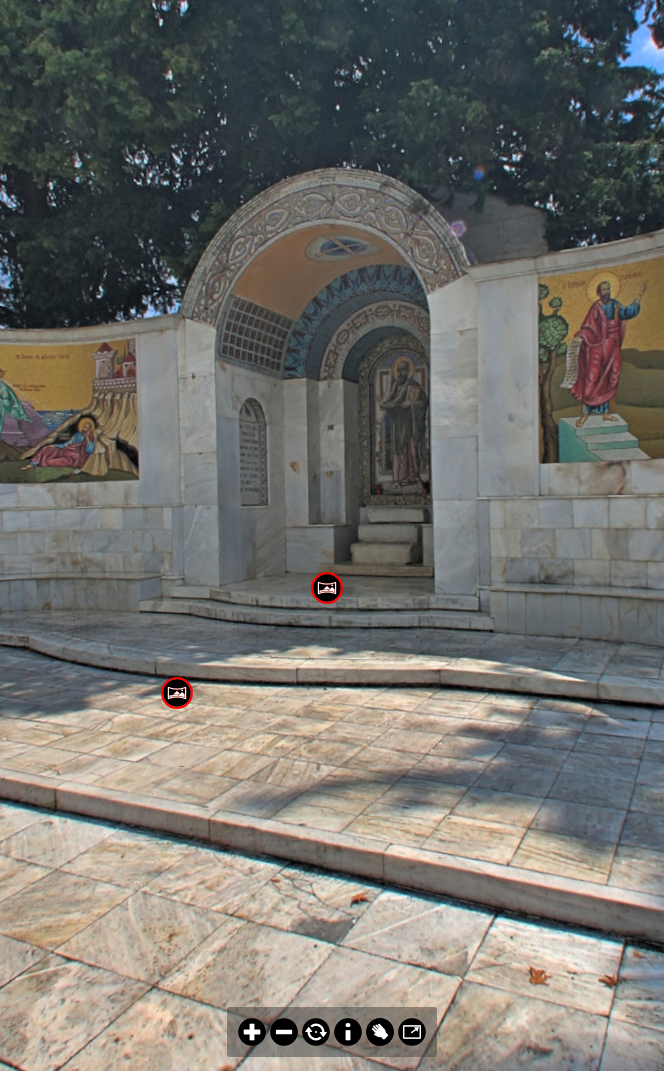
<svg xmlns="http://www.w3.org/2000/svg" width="664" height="1071">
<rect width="100%" height="100%" fill="#fff"/>
<image x="0" y="0" width="664" height="1071" href="media/1.png"/>
<image x="311" y="572" width="32" height="32" href="media/2.png"/>
<image x="161" y="677" width="32" height="32" href="media/3.png"/>
<rect x="227" y="1007" width="210" height="50" rx="3" fill="#3f3f3f80"/>
<image x="238" y="1018" width="28" height="28" href="media/4.png"/>
<image x="270" y="1018" width="28" height="28" href="media/5.png"/>
<image x="302" y="1018" width="28" height="28" href="media/6.png"/>
<image x="334" y="1018" width="28" height="28" href="media/7.png"/>
<image x="366" y="1018" width="28" height="28" href="media/8.png"/>
<image x="366" y="1018" width="28" height="28" href="media/9.png"/>
<image x="398" y="1018" width="28" height="28" href="media/10.png"/>
</svg>
